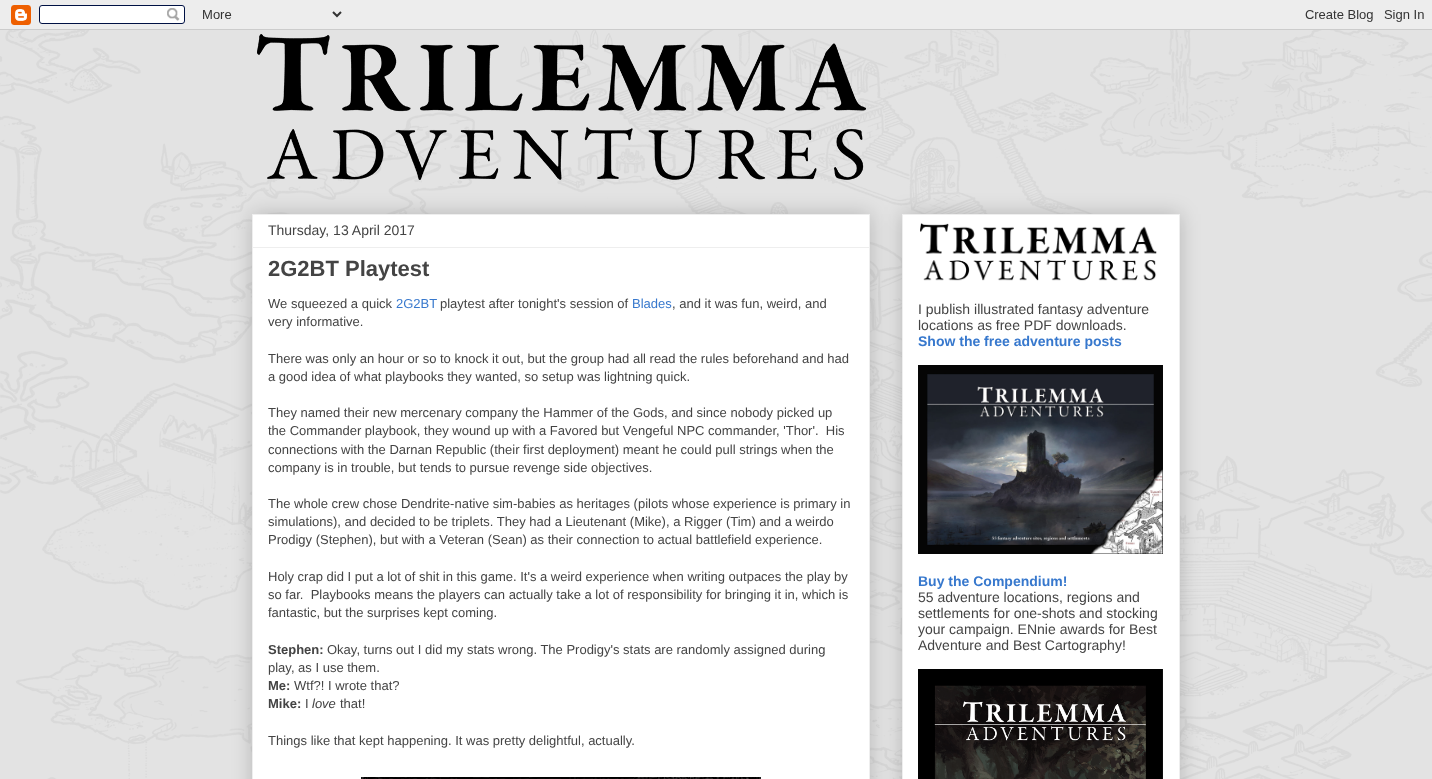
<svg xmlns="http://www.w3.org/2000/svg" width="1432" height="779">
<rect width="100%" height="100%" fill="#fff"/>
<image x="0" y="30" width="1432" height="749" href="media/1.png"/>
<image x="0" y="0" width="1432" height="30" href="media/2.png"/>
<image x="257" y="34" width="609" height="146" href="media/3.png"/>
<rect x="252" y="214" width="618" height="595" fill="#00000033" filter="blur(10px)"/>
<rect x="252.5" y="214.5" width="617" height="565" fill="#fff" stroke="#eee"/>
<text x="268" y="235" style="font-family:Liberation Sans;font-size:14px;fill:#444">Thursday, 13 April 2017</text>
<rect x="253" y="247" width="616" height="1" fill="#eee"/>
<text x="268" y="276" style="font-family:Liberation Sans;font-size:22px;font-weight:bold;fill:#444">2G2BT Playtest</text>
<text x="268" y="308" style="font-family:Liberation Sans;font-size:13px;fill:#444">We squeezed a quick</text>
<text x="396" y="308" style="font-family:Liberation Sans;font-size:13px;fill:#3778cd">2G2BT</text>
<text x="440" y="308" style="font-family:Liberation Sans;font-size:13px;fill:#444">playtest after tonight's session of</text>
<text x="632" y="308" style="font-family:Liberation Sans;font-size:13px;fill:#3778cd">Blades</text>
<text x="672" y="308" style="font-family:Liberation Sans;font-size:13px;fill:#444">, and it was fun, weird, and</text>
<text x="268" y="326" style="font-family:Liberation Sans;font-size:13px;fill:#444">very informative.</text>
<text x="268" y="363" style="font-family:Liberation Sans;font-size:13px;fill:#444">There was only an hour or so to knock it out, but the group had all read the rules beforehand and had</text>
<text x="268" y="381" style="font-family:Liberation Sans;font-size:13px;fill:#444">a good idea of what playbooks they wanted, so setup was lightning quick.</text>
<text x="268" y="417" style="font-family:Liberation Sans;font-size:13px;fill:#444">They named their new mercenary company the Hammer of the Gods, and since nobody picked up</text>
<text x="268" y="435" style="font-family:Liberation Sans;font-size:13px;fill:#444" xml:space="preserve">the Commander playbook, they wound up with a Favored but Vengeful NPC commander, 'Thor'.  His</text>
<text x="268" y="454" style="font-family:Liberation Sans;font-size:13px;fill:#444">connections with the Darnan Republic (their first deployment) meant he could pull strings when the</text>
<text x="268" y="472" style="font-family:Liberation Sans;font-size:13px;fill:#444">company is in trouble, but tends to pursue revenge side objectives.</text>
<text x="268" y="508" style="font-family:Liberation Sans;font-size:13px;fill:#444">The whole crew chose Dendrite-native sim-babies as heritages (pilots whose experience is primary in</text>
<text x="268" y="526" style="font-family:Liberation Sans;font-size:13px;fill:#444">simulations), and decided to be triplets. They had a Lieutenant (Mike), a Rigger (Tim) and a weirdo</text>
<text x="268" y="544" style="font-family:Liberation Sans;font-size:13px;fill:#444">Prodigy (Stephen), but with a Veteran (Sean) as their connection to actual battlefield experience.</text>
<text x="268" y="581" style="font-family:Liberation Sans;font-size:13px;fill:#444">Holy crap did I put a lot of shit in this game. It's a weird experience when writing outpaces the play by</text>
<text x="268" y="599" style="font-family:Liberation Sans;font-size:13px;fill:#444" xml:space="preserve">so far.  Playbooks means the players can actually take a lot of responsibility for bringing it in, which is</text>
<text x="268" y="617" style="font-family:Liberation Sans;font-size:13px;fill:#444">fantastic, but the surprises kept coming.</text>
<text x="268" y="654" style="font-family:Liberation Sans;font-size:13px;font-weight:bold;fill:#444">Stephen:</text>
<text x="327" y="654" style="font-family:Liberation Sans;font-size:13px;fill:#444">Okay, turns out I did my stats wrong. The Prodigy's stats are randomly assigned during</text>
<text x="268" y="672" style="font-family:Liberation Sans;font-size:13px;fill:#444">play, as I use them.</text>
<text x="268" y="690" style="font-family:Liberation Sans;font-size:13px;font-weight:bold;fill:#444">Me:</text>
<text x="294" y="690" style="font-family:Liberation Sans;font-size:13px;fill:#444">Wtf?! I wrote that?</text>
<text x="268" y="708" style="font-family:Liberation Sans;font-size:13px;font-weight:bold;fill:#444">Mike:</text>
<text x="305" y="708" style="font-family:Liberation Sans;font-size:13px;fill:#444">I</text>
<text x="312" y="708" style="font-family:Liberation Sans;font-size:13px;font-style:italic;fill:#444">love</text>
<text x="340" y="708" style="font-family:Liberation Sans;font-size:13px;fill:#444">that!</text>
<text x="268" y="745" style="font-family:Liberation Sans;font-size:13px;fill:#444">Things like that kept happening. It was pretty delightful, actually.</text>
<image x="361" y="777" width="400" height="2" href="media/4.png"/>
<rect x="902" y="214" width="278" height="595" fill="#00000033" filter="blur(10px)"/>
<rect x="902.5" y="214.5" width="277" height="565" fill="#fff" stroke="#eee"/>
<image x="920" y="223" width="237" height="58" href="media/5.png"/>
<text x="918" y="314" style="font-family:Liberation Sans;font-size:14px;fill:#444">I publish illustrated fantasy adventure</text>
<text x="918" y="330" style="font-family:Liberation Sans;font-size:14px;fill:#444">locations as free PDF downloads.</text>
<text x="918" y="346" style="font-family:Liberation Sans;font-size:14px;font-weight:bold;fill:#3778cd">Show the free adventure posts</text>
<image x="918" y="365" width="245" height="189" href="media/6.png"/>
<text x="918" y="586" style="font-family:Liberation Sans;font-size:14px;font-weight:bold;fill:#3778cd">Buy the Compendium!</text>
<text x="918" y="602" style="font-family:Liberation Sans;font-size:14px;fill:#444">55 adventure locations, regions and</text>
<text x="918" y="618" style="font-family:Liberation Sans;font-size:14px;fill:#444">settlements for one-shots and stocking</text>
<text x="918" y="634" style="font-family:Liberation Sans;font-size:14px;fill:#444">your campaign. ENnie awards for Best</text>
<text x="918" y="650" style="font-family:Liberation Sans;font-size:14px;fill:#444">Adventure and Best Cartography!</text>
<image x="918" y="669" width="245" height="110" href="media/7.png"/>
</svg>
